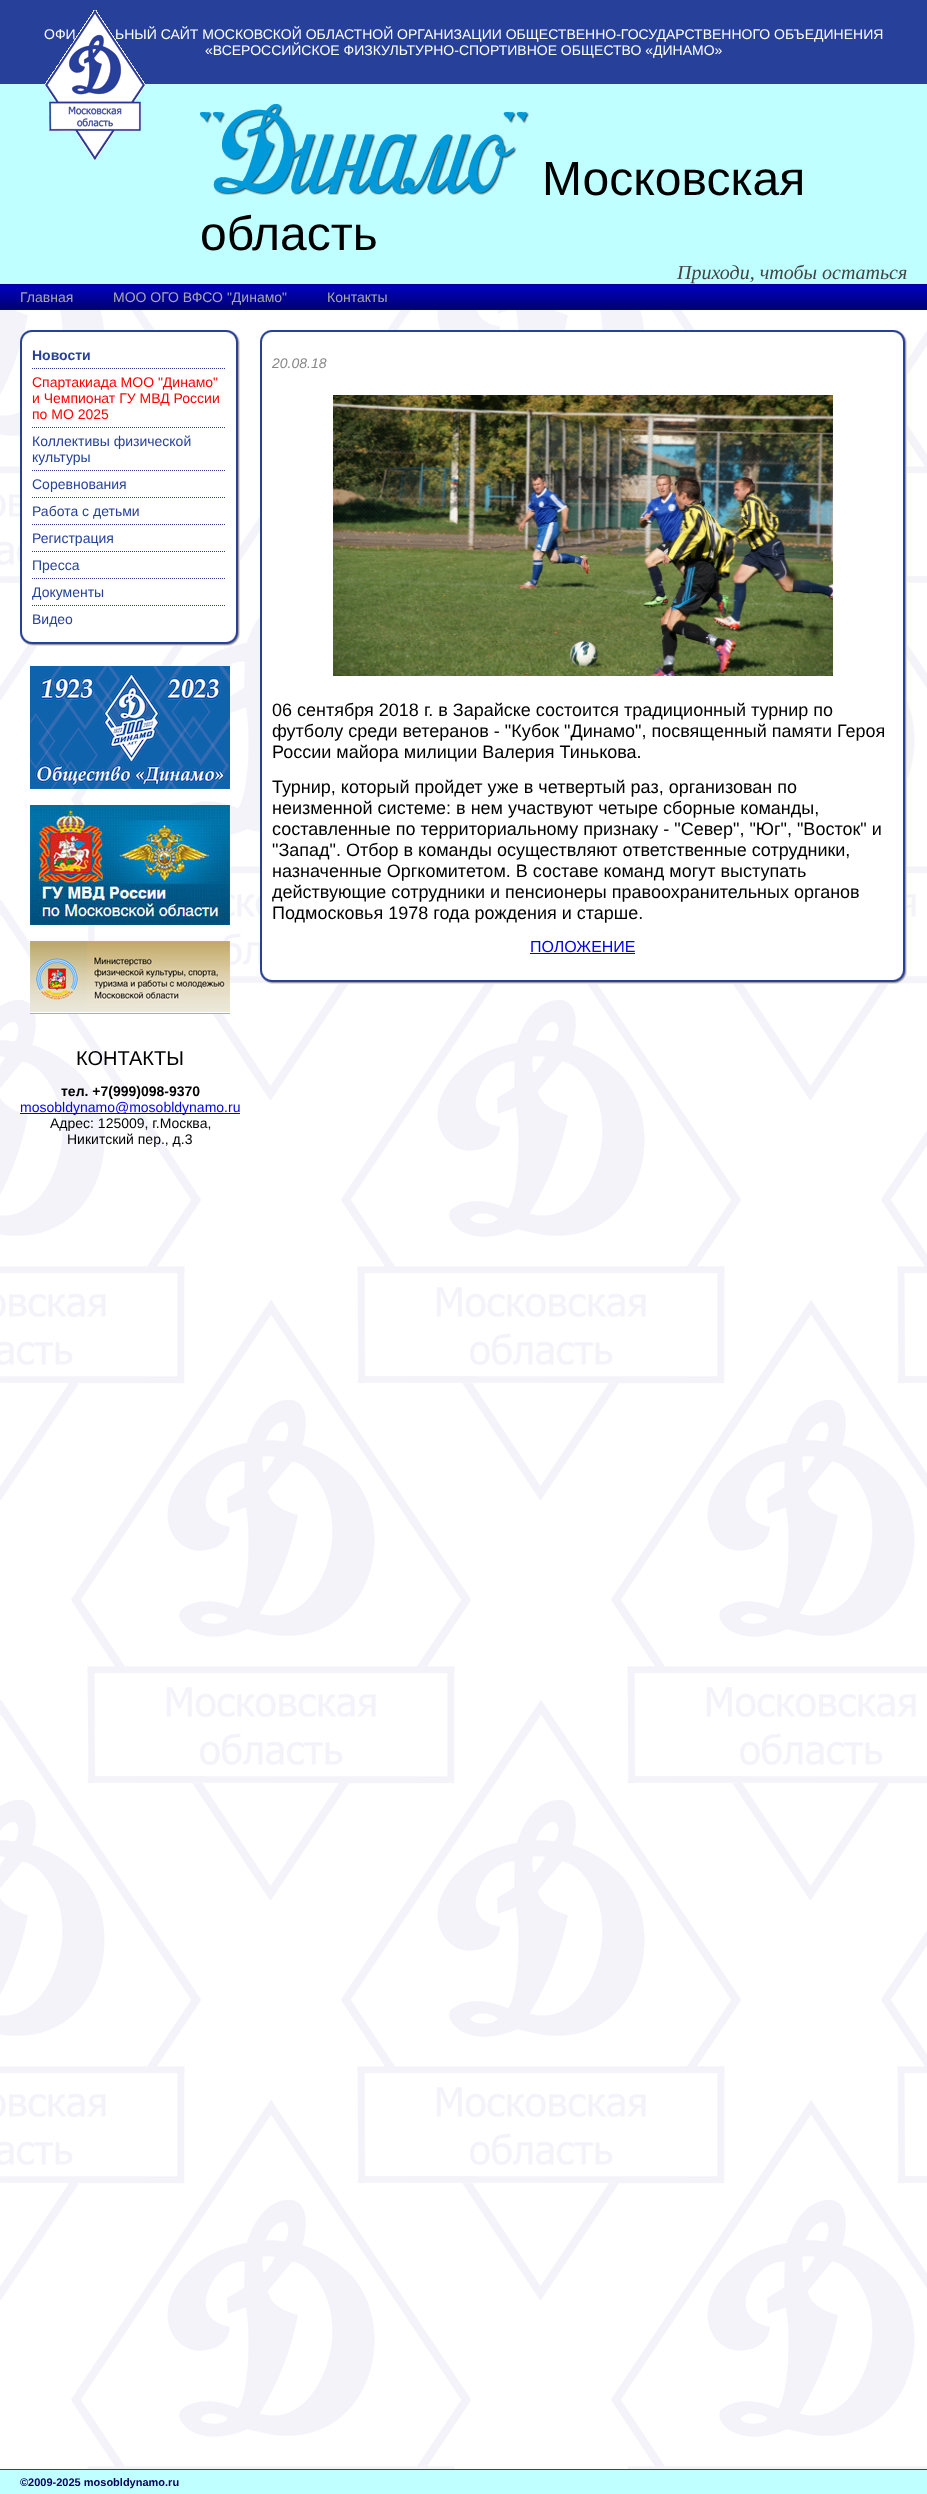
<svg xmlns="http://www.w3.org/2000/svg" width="927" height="2494">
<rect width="100%" height="100%" fill="#fff"/>
<image x="0" y="310" width="927" height="2159" href="media/1.png"/>
<rect width="927" height="84" fill="#27419a"/>
<text x="44" y="39" style="font-family:Liberation Sans;font-size:14px;fill:#fff">ОФИ</text>
<text x="115" y="39" style="font-family:Liberation Sans;font-size:14px;fill:#fff">ЬНЫЙ САЙТ МОСКОВСКОЙ ОБЛАСТНОЙ ОРГАНИЗАЦИИ ОБЩЕСТВЕННО-ГОСУДАРСТВЕННОГО ОБЪЕДИНЕНИЯ</text>
<text x="205" y="55" style="font-family:Liberation Sans;font-size:14px;fill:#fff">«ВСЕРОССИЙСКОЕ ФИЗКУЛЬТУРНО-СПОРТИВНОЕ ОБЩЕСТВО «ДИНАМО»</text>
<rect y="84" width="927" height="200" fill="#c0ffff"/>
<image x="45" y="10" width="100" height="150" href="media/2.png"/>
<image x="200" y="104" width="329" height="91" href="media/3.png"/>
<text x="542" y="195" style="font-family:Liberation Sans;font-size:48px;fill:#000">Московская</text>
<text x="200" y="250" style="font-family:Liberation Sans;font-size:48px;fill:#000">область</text>
<text x="677" y="279" style="font-family:Liberation Serif;font-size:20px;font-style:italic;fill:#444">Приходи, чтобы остаться</text>
<rect y="284" width="927" height="26" fill="#009"/>
<image x="0" y="285" width="927" height="24" href="media/4.png"/>
<text x="20" y="302" style="font-family:Liberation Sans;font-size:14px;fill:#a9a9a9">Главная</text>
<text x="113" y="302" style="font-family:Liberation Sans;font-size:14px;fill:#a9a9a9">МОО ОГО ВФСО "Динамо"</text>
<text x="327" y="302" style="font-family:Liberation Sans;font-size:14px;fill:#a9a9a9">Контакты</text>
<image x="20" y="330" width="12" height="12" href="media/5.png"/>
<rect x="62" y="332" width="101" height="10" fill="#fff"/>
<rect x="32" y="330" width="194" height="2" fill="#27419a"/>
<image x="226" y="330" width="14" height="12" href="media/6.png"/>
<rect x="22" y="405" width="10" height="178" fill="#fff"/>
<rect x="20" y="342" width="2" height="290" fill="#27419a"/>
<rect x="32" y="342" width="194" height="290" fill="#fff"/>
<path d="M32 368.5h194" fill="none" stroke="#27419a" stroke-dasharray="1 1"/>
<text x="32" y="360" style="font-family:Liberation Sans;font-size:14px;font-weight:bold;fill:#27419a">Новости</text>
<path d="M32 427.5h194" fill="none" stroke="#27419a" stroke-dasharray="1 1"/>
<text x="32" y="387" style="font-family:Liberation Sans;font-size:14px;fill:#f00">Спартакиада МОО "Динамо"</text>
<text x="32" y="403" style="font-family:Liberation Sans;font-size:14px;fill:#f00">и Чемпионат ГУ МВД России</text>
<text x="32" y="419" style="font-family:Liberation Sans;font-size:14px;fill:#f00">по МО 2025</text>
<path d="M32 470.5h194" fill="none" stroke="#27419a" stroke-dasharray="1 1"/>
<text x="32" y="446" style="font-family:Liberation Sans;font-size:14px;fill:#27419a">Коллективы физической</text>
<text x="32" y="462" style="font-family:Liberation Sans;font-size:14px;fill:#27419a">культуры</text>
<path d="M32 497.5h194" fill="none" stroke="#27419a" stroke-dasharray="1 1"/>
<text x="32" y="489" style="font-family:Liberation Sans;font-size:14px;fill:#27419a">Соревнования</text>
<path d="M32 524.5h194" fill="none" stroke="#27419a" stroke-dasharray="1 1"/>
<text x="32" y="516" style="font-family:Liberation Sans;font-size:14px;fill:#27419a">Работа с детьми</text>
<path d="M32 551.5h194" fill="none" stroke="#27419a" stroke-dasharray="1 1"/>
<text x="32" y="543" style="font-family:Liberation Sans;font-size:14px;fill:#27419a">Регистрация</text>
<path d="M32 578.5h194" fill="none" stroke="#27419a" stroke-dasharray="1 1"/>
<text x="32" y="570" style="font-family:Liberation Sans;font-size:14px;fill:#27419a">Пресса</text>
<path d="M32 605.5h194" fill="none" stroke="#27419a" stroke-dasharray="1 1"/>
<text x="32" y="597" style="font-family:Liberation Sans;font-size:14px;fill:#27419a">Документы</text>
<text x="32" y="624" style="font-family:Liberation Sans;font-size:14px;fill:#27419a">Видео</text>
<rect x="226" y="552" width="10" height="30" fill="#fff"/>
<image x="236" y="342" width="4" height="290" href="media/7.png"/>
<image x="20" y="632" width="12" height="14" href="media/8.png"/>
<rect x="32" y="632" width="161" height="10" fill="#fff"/>
<image x="32" y="642" width="194" height="4" href="media/9.png"/>
<image x="226" y="632" width="14" height="14" href="media/10.png"/>
<image x="30" y="666" width="200" height="123" href="media/11.png"/>
<image x="30" y="805" width="200" height="120" href="media/12.png"/>
<image x="30" y="941" width="200" height="73" href="media/13.png"/>
<text x="76" y="1065" style="font-family:Liberation Sans;font-size:20px;fill:#000">КОНТАКТЫ</text>
<text x="61" y="1096" style="font-family:Liberation Sans;font-size:14px;font-weight:bold;fill:#000">тел. +7(999)098-9370</text>
<rect x="20" y="1113" width="220" height="1" fill="#00e"/>
<text x="20" y="1112" style="font-family:Liberation Sans;font-size:14px;fill:#00e">mosobldynamo@mosobldynamo.ru</text>
<text x="50" y="1128" style="font-family:Liberation Sans;font-size:14px;fill:#000">Адрес: 125009, г.Москва,</text>
<text x="67" y="1144" style="font-family:Liberation Sans;font-size:14px;fill:#000">Никитский пер., д.3</text>
<image x="260" y="330" width="12" height="12" href="media/14.png"/>
<rect x="379" y="332" width="324" height="10" fill="#fff"/>
<rect x="272" y="330" width="621" height="2" fill="#27419a"/>
<image x="893" y="330" width="14" height="12" href="media/6.png"/>
<rect x="262" y="500" width="10" height="465" fill="#fff"/>
<rect x="260" y="342" width="2" height="628" fill="#27419a"/>
<rect x="272" y="342" width="621" height="638" fill="#fff"/>
<text x="272" y="368" style="font-family:Liberation Sans;font-size:14px;font-style:italic;fill:#888">20.08.18</text>
<image x="333" y="395" width="500" height="281" href="media/15.png"/>
<text x="272" y="716" style="font-family:Liberation Sans;font-size:18px;fill:#000">06 сентября 2018 г. в Зарайске состоится традиционный турнир по</text>
<text x="272" y="737" style="font-family:Liberation Sans;font-size:18px;fill:#000">футболу среди ветеранов - "Кубок "Динамо", посвященный памяти Героя</text>
<text x="272" y="758" style="font-family:Liberation Sans;font-size:18px;fill:#000">России майора милиции Валерия Тинькова.</text>
<text x="272" y="793" style="font-family:Liberation Sans;font-size:18px;fill:#000">Турнир, который пройдет уже в четвертый раз, организован по</text>
<text x="272" y="814" style="font-family:Liberation Sans;font-size:18px;fill:#000">неизменной системе: в нем участвуют четыре сборные команды,</text>
<text x="272" y="835" style="font-family:Liberation Sans;font-size:18px;fill:#000">составленные по территориальному признаку - "Север", "Юг", "Восток" и</text>
<text x="272" y="856" style="font-family:Liberation Sans;font-size:18px;fill:#000">"Запад". Отбор в команды осуществляют ответственные сотрудники,</text>
<text x="272" y="877" style="font-family:Liberation Sans;font-size:18px;fill:#000">назначенные Оргкомитетом. В составе команд могут выступать</text>
<text x="272" y="898" style="font-family:Liberation Sans;font-size:18px;fill:#000">действующие сотрудники и пенсионеры правоохранительных органов</text>
<text x="272" y="919" style="font-family:Liberation Sans;font-size:18px;fill:#000">Подмосковья 1978 года рождения и старше.</text>
<text x="530" y="952" style="font-family:Liberation Sans;font-size:16px;fill:#00e">ПОЛОЖЕНИЕ</text>
<rect x="530" y="953" width="105" height="1" fill="#00e"/>
<rect x="893" y="367" width="10" height="550" fill="#fff"/>
<image x="903" y="342" width="4" height="628" href="media/16.png"/>
<image x="260" y="970" width="12" height="14" href="media/17.png"/>
<image x="272" y="980" width="621" height="4" href="media/18.png"/>
<image x="893" y="970" width="14" height="14" href="media/19.png"/>
<rect y="2470" width="927" height="24" fill="#c0ffff"/>
<rect y="2469" width="927" height="1" fill="#27419a"/>
<text x="20" y="2486" style="font-family:Liberation Sans;font-size:11px;font-weight:bold;fill:#005">©2009-2025 mosobldynamo.ru</text>
</svg>
